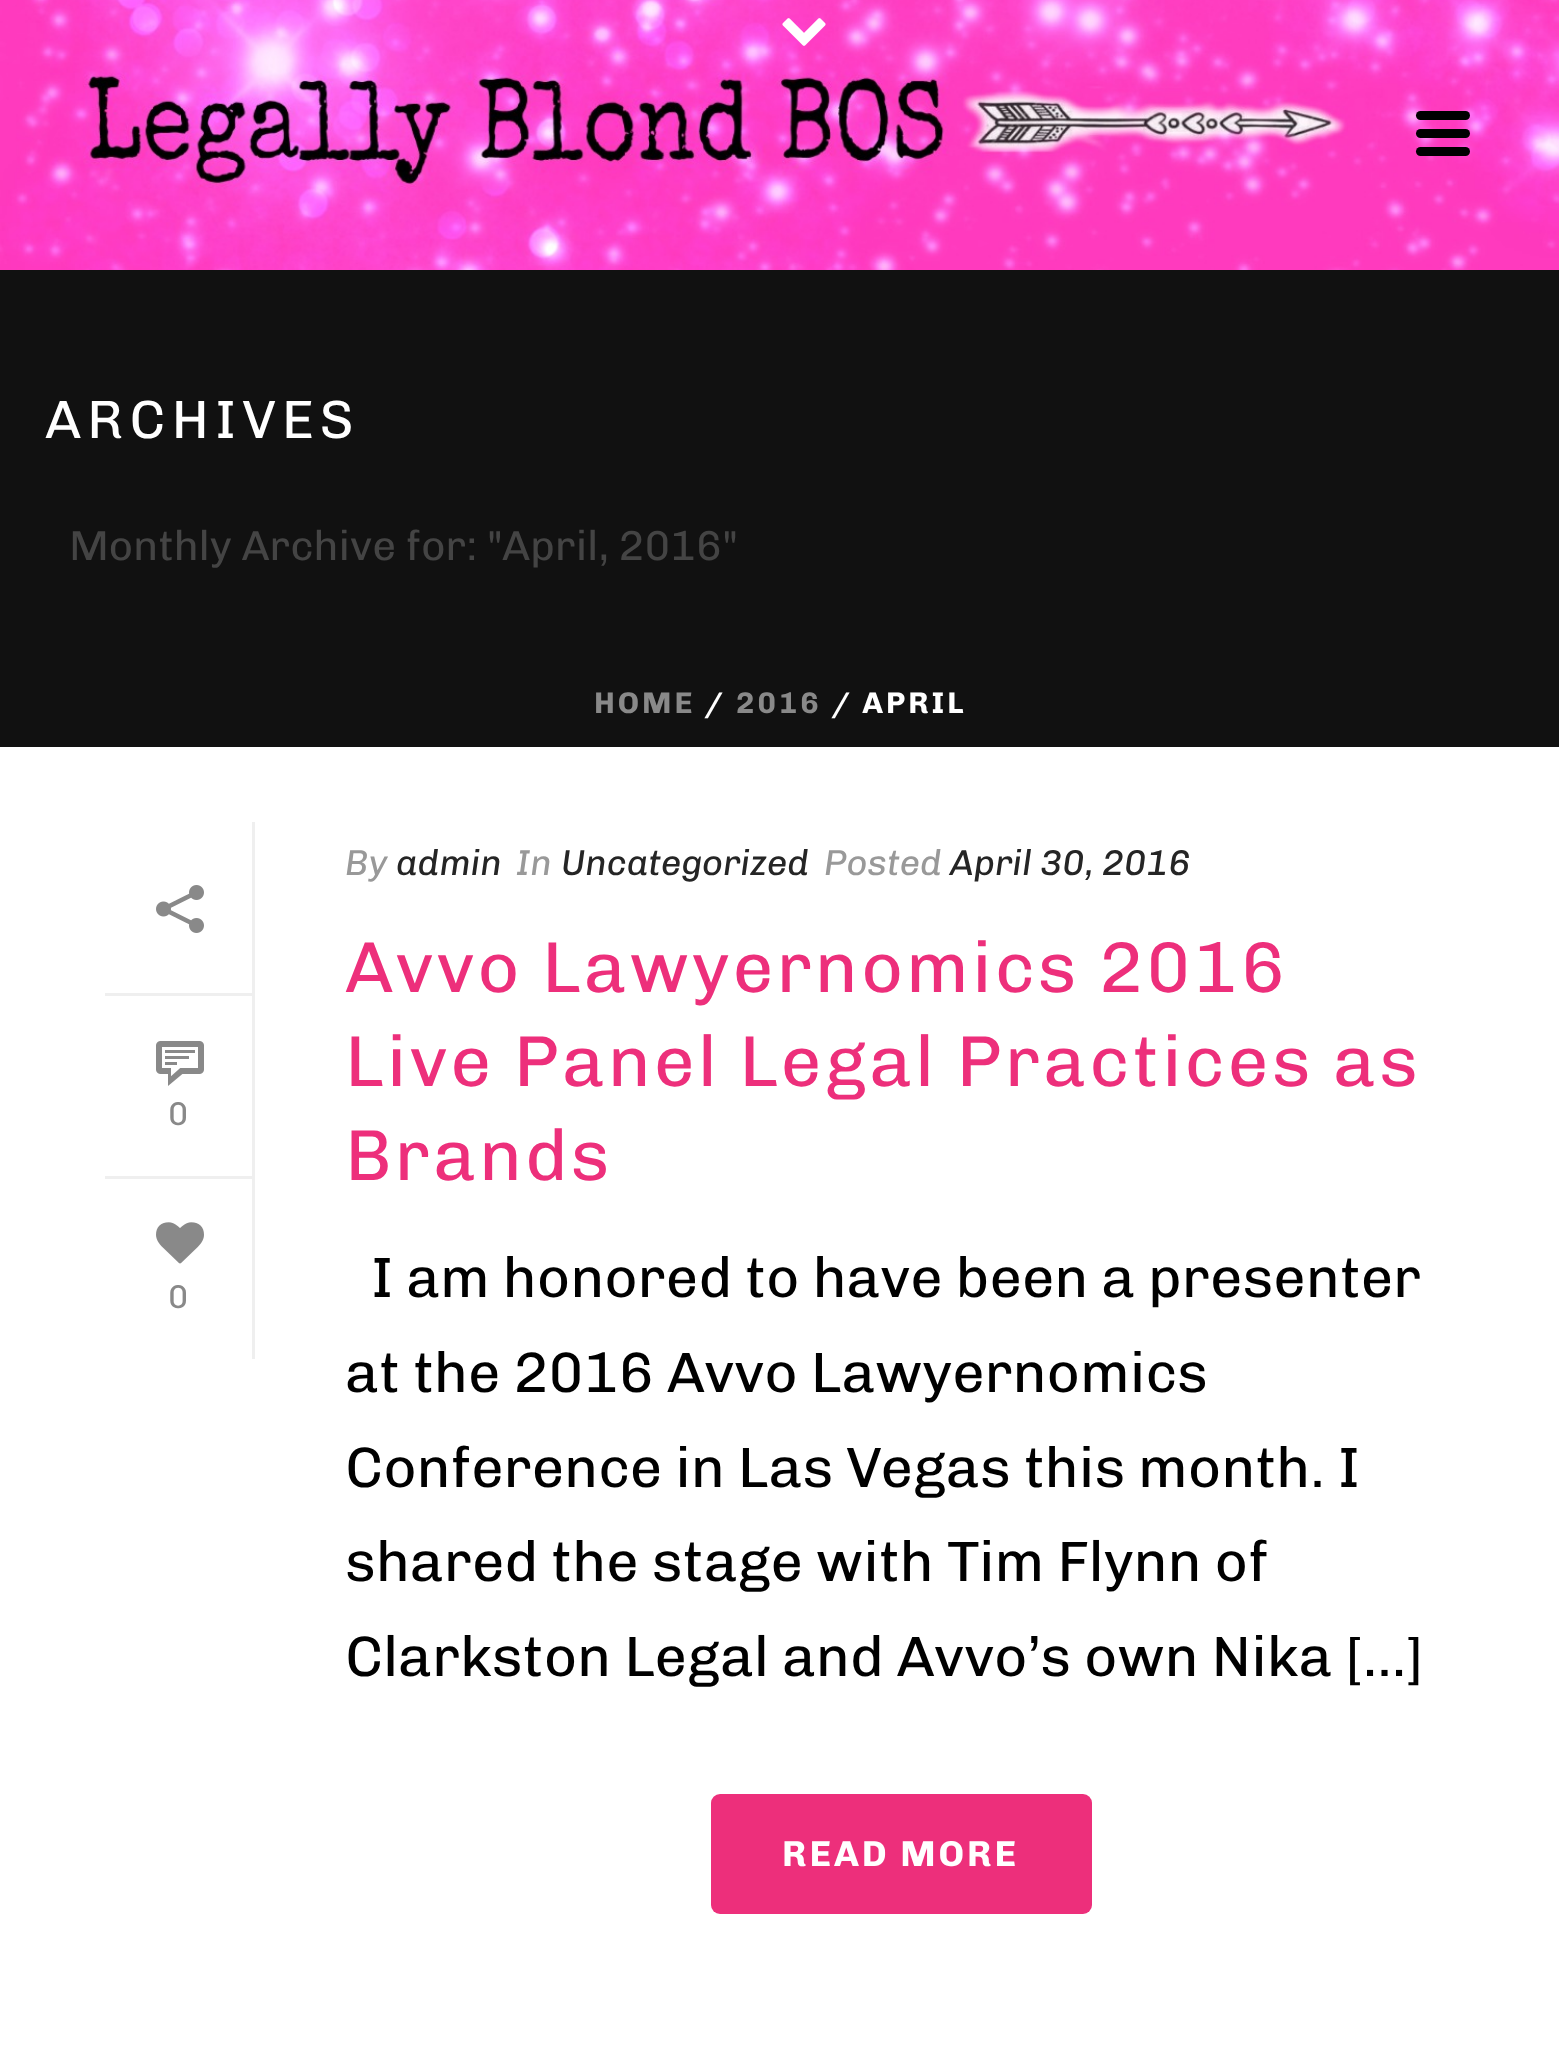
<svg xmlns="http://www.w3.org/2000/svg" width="1559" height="2060">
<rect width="100%" height="100%" fill="#fff"/>
<rect y="270" width="1559" height="477" fill="#111"/>
<image x="0" y="0" width="1559" height="270" href="media/1.png"/>
<image x="782" y="18" width="44" height="28" href="media/2.png"/>
<rect x="1416" y="111" width="54" height="9" rx="4.5" fill="#000"/>
<rect x="1416" y="129" width="54" height="9" rx="4.5" fill="#000"/>
<rect x="1416" y="147" width="54" height="9" rx="4.5" fill="#000"/>
<text x="45" y="438" style="font-family:Chivo;font-size:54px;letter-spacing:6px;fill:#fff">ARCHIVES</text>
<text x="69" y="560" style="font-family:Chivo;font-size:42px;fill:#444">Monthly Archive for: "April, 2016"</text>
<text x="594" y="713" style="font-family:Chivo;font-size:30px;font-weight:bold;letter-spacing:3px;fill:#898989">HOME</text>
<text x="704" y="713" style="font-family:Chivo;font-size:30px;font-weight:bold;letter-spacing:3px;fill:#fff">/</text>
<text x="736" y="713" style="font-family:Chivo;font-size:30px;font-weight:bold;letter-spacing:3px;fill:#898989">2016</text>
<text x="831" y="713" style="font-family:Chivo;font-size:30px;font-weight:bold;letter-spacing:3px;fill:#fff">/ APRIL</text>
<rect x="252" y="822" width="3" height="537" fill="#efefef"/>
<rect x="105" y="993" width="147" height="3" fill="#efefef"/>
<image x="156" y="885" width="48" height="48" href="media/3.png"/>
<rect x="105" y="1176" width="147" height="3" fill="#efefef"/>
<image x="156" y="1041" width="48" height="45" href="media/4.png"/>
<text x="168" y="1125" style="font-family:Chivo;font-size:33px;fill:#898989">0</text>
<image x="156" y="1222" width="48" height="42" href="media/5.png"/>
<text x="168" y="1308" style="font-family:Chivo;font-size:33px;fill:#898989">0</text>
<text x="345" y="875" style="font-family:Chivo;font-size:36px;font-style:italic;fill:#999">By</text>
<text x="396" y="875" style="font-family:Chivo;font-size:36px;font-style:italic;fill:#252525">admin</text>
<text x="516" y="875" style="font-family:Chivo;font-size:36px;font-style:italic;fill:#999">In</text>
<text x="561" y="875" style="font-family:Chivo;font-size:36px;font-style:italic;fill:#252525">Uncategorized</text>
<text x="824" y="875" style="font-family:Chivo;font-size:36px;font-style:italic;fill:#999">Posted</text>
<text x="950" y="875" style="font-family:Chivo;font-size:36px;font-style:italic;fill:#252525">April 30, 2016</text>
<text x="345" y="992" style="font-family:Chivo;font-size:72px;letter-spacing:3px;fill:#ed2f7b">Avvo Lawyernomics 2016</text>
<text x="345" y="1086" style="font-family:Chivo;font-size:72px;letter-spacing:3px;fill:#ed2f7b">Live Panel Legal Practices as</text>
<text x="345" y="1180" style="font-family:Chivo;font-size:72px;letter-spacing:3px;fill:#ed2f7b">Brands</text>
<text x="371" y="1297" style="font-family:Chivo;font-size:57px;fill:#000">I am honored to have been a presenter</text>
<text x="345" y="1392" style="font-family:Chivo;font-size:57px;fill:#000">at the 2016 Avvo Lawyernomics</text>
<text x="345" y="1487" style="font-family:Chivo;font-size:57px;fill:#000">Conference in Las Vegas this month. I</text>
<text x="345" y="1581" style="font-family:Chivo;font-size:57px;fill:#000">shared the stage with Tim Flynn of</text>
<text x="345" y="1676" style="font-family:Chivo;font-size:57px;fill:#000">Clarkston Legal and Avvo’s own Nika [...]</text>
<rect x="711" y="1794" width="381" height="120" rx="9" fill="#ed2f7b"/>
<text x="782" y="1866" style="font-family:Chivo;font-size:36px;font-weight:bold;letter-spacing:3px;fill:#fff">READ MORE</text>
</svg>
